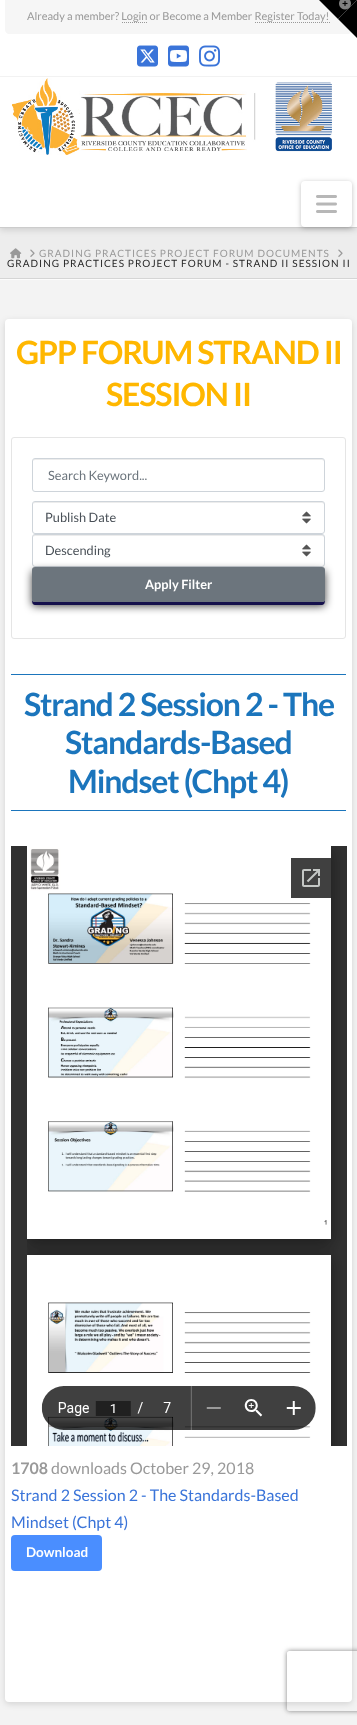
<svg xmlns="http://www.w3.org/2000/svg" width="357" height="1725">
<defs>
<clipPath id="clip1"><path d="M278 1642h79v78h-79zm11 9h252c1 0 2 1 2 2v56c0 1-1 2-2 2h-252c-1 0-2-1-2-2v-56c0-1 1-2 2-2z" clip-rule="evenodd"/></clipPath>
</defs>
<rect width="100%" height="100%" fill="#f3f3f3"/>
<rect y="228" width="357" height="50" fill="#ededed"/>
<rect y="79" width="357" height="151" fill="#00000021" filter="blur(3px)"/>
<rect width="357" height="76" fill="#fff"/>
<path d="M5 0h347v30c0 2-2 4-4 4h-339c-2 0-4-2-4-4z" fill="#f6f6f6"/>
<text x="27" y="20" style="font-family:Lato;font-size:11px;fill:#999">Already a member? Login or Become a Member Register Today!</text>
<path d="M319 0h38l-19 19z" fill="#000"/>
<path d="M357 0v38l-19-19z" fill="#000"/>
<image x="339" y="0" width="12" height="10" href="media/1.png"/>
<rect y="76" width="357" height="1" fill="#f2f2f2"/>
<path d="M122 22.5h26" fill="none" stroke="#999" stroke-dasharray="1 1"/>
<path d="M255 22.5h75" fill="none" stroke="#999" stroke-dasharray="1 1"/>
<image x="137" y="45" width="21" height="22" href="media/2.png"/>
<image x="168" y="45" width="21" height="22" href="media/3.png"/>
<image x="199" y="45" width="21" height="22" href="media/4.png"/>
<rect y="77" width="357" height="150" fill="#fff"/>
<rect y="227" width="357" height="1" fill="#ccc"/>
<image x="12" y="78" width="320" height="77" href="media/5.png"/>
<rect x="301" y="182" width="51" height="46" rx="4" fill="#00000040" filter="blur(2.5px)"/>
<rect x="301" y="181" width="51" height="46" rx="4" fill="#fff"/>
<image x="316" y="195" width="21" height="18" href="media/6.png"/>
<rect y="279" width="357" height="1" fill="#fcfcfc"/>
<rect y="278" width="357" height="1" fill="#d5d5d5"/>
<image x="10" y="248" width="12" height="11" href="media/7.png"/>
<image x="30" y="249" width="5" height="8" href="media/8.png"/>
<text x="39" y="257" style="font-family:Lato;font-size:10px;letter-spacing:1px;fill:#999">GRADING PRACTICES PROJECT FORUM DOCUMENTS</text>
<image x="338" y="249" width="5" height="8" href="media/8.png"/>
<text x="7" y="267" style="font-family:Lato;font-size:10px;letter-spacing:1px;fill:#272727">GRADING PRACTICES PROJECT FORUM - STRAND II SESSION II</text>
<rect x="5" y="321" width="347" height="1383" rx="4" fill="#00000021" filter="blur(3px)"/>
<rect x="5" y="319" width="347" height="1383" rx="4" fill="#fff"/>
<text x="16" y="364" style="font-family:Lato;font-size:32px;font-weight:bold;letter-spacing:-1.1px;fill:#ffb700">GPP FORUM STRAND II</text>
<text x="106" y="406" style="font-family:Lato;font-size:32px;font-weight:bold;letter-spacing:-1.1px;fill:#ffb700">SESSION II</text>
<rect x="11.5" y="437.5" width="334" height="201" rx="2.5" fill="none" stroke="#e5e5e5"/>
<path d="M35 460h287c1 0 2 1 2 2c0-1 0-3-2-3h-288l-1 3c0-1 1-2 2-2z" fill="#ececec"/>
<rect x="32.5" y="458.5" width="292" height="33" rx="2.5" fill="none" stroke="#ced4da"/>
<text x="48" y="480" style="font-family:Lato;font-size:12.75px;fill:#6c757d">Search Keyword...</text>
<image x="302" y="511" width="9" height="13" href="media/9.png"/>
<path d="M35 503h287c1 0 2 1 2 2c0-1 0-3-2-3h-288l-1 3c0-1 1-2 2-2z" fill="#ececec"/>
<rect x="32.5" y="501.5" width="292" height="32" rx="2.5" fill="none" stroke="#ced4da"/>
<text x="45" y="522" style="font-family:Lato;font-size:12.75px;fill:#495057">Publish Date</text>
<image x="302" y="544" width="9" height="13" href="media/9.png"/>
<path d="M35 536h287c1 0 2 1 2 2c0-1 0-3-2-3h-288l-1 3c0-1 1-2 2-2z" fill="#ececec"/>
<rect x="32.5" y="534.5" width="292" height="32" rx="2.5" fill="none" stroke="#ced4da"/>
<text x="45" y="555" style="font-family:Lato;font-size:12.75px;fill:#495057">Descending</text>
<rect x="32" y="571" width="293" height="35" rx="3" fill="#000000bf" filter="blur(4.5px)"/>
<path d="M32 599c0 2 0 6 3 6h287c3 0 3-4 3-6c0 2-1 3-3 3h-287c-2 0-3-1-3-3z" fill="#15104c"/>
<rect x="32" y="567" width="293" height="35" rx="3" fill="#6c757d"/>
<text x="145" y="589" style="font-family:Lato;font-size:12.75px;font-weight:bold;fill:#fff">Apply Filter</text>
<rect x="11" y="674" width="335" height="1" fill="#1b75bc"/>
<rect x="11" y="810" width="335" height="1" fill="#1b75bc"/>
<text x="24" y="716" style="font-family:Lato;font-size:32px;font-weight:bold;letter-spacing:-1.1px;fill:#1b75bc">Strand 2 Session 2 - The</text>
<text x="65" y="754" style="font-family:Lato;font-size:32px;font-weight:bold;letter-spacing:-1.1px;fill:#1b75bc">Standards-Based</text>
<text x="68" y="793" style="font-family:Lato;font-size:32px;font-weight:bold;letter-spacing:-1.1px;fill:#1b75bc">Mindset (Chpt 4)</text>
<image x="11" y="846" width="336" height="600" href="media/10.png"/>
<text x="11" y="1474" style="font-family:Lato;font-size:16px;font-weight:bold;fill:#999">1708</text>
<text x="51" y="1474" style="font-family:Lato;font-size:16px;fill:#999">downloads October 29, 2018</text>
<text x="11" y="1501" style="font-family:Lato;font-size:16px;fill:#3a74d9">Strand 2 Session 2 - The Standards-Based</text>
<text x="11" y="1528" style="font-family:Lato;font-size:16px;fill:#3a74d9">Mindset (Chpt 4)</text>
<rect x="11" y="1535" width="91" height="36" rx="4" fill="#4a8eff"/>
<text x="26" y="1557" style="font-family:Lato;font-size:13.5px;font-weight:bold;fill:#fff">Download</text>
<g clip-path="url(#clip1)">
<rect x="287" y="1651" width="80" height="60" rx="2" fill="#808080" filter="blur(2.5px)"/>
</g>
</svg>
